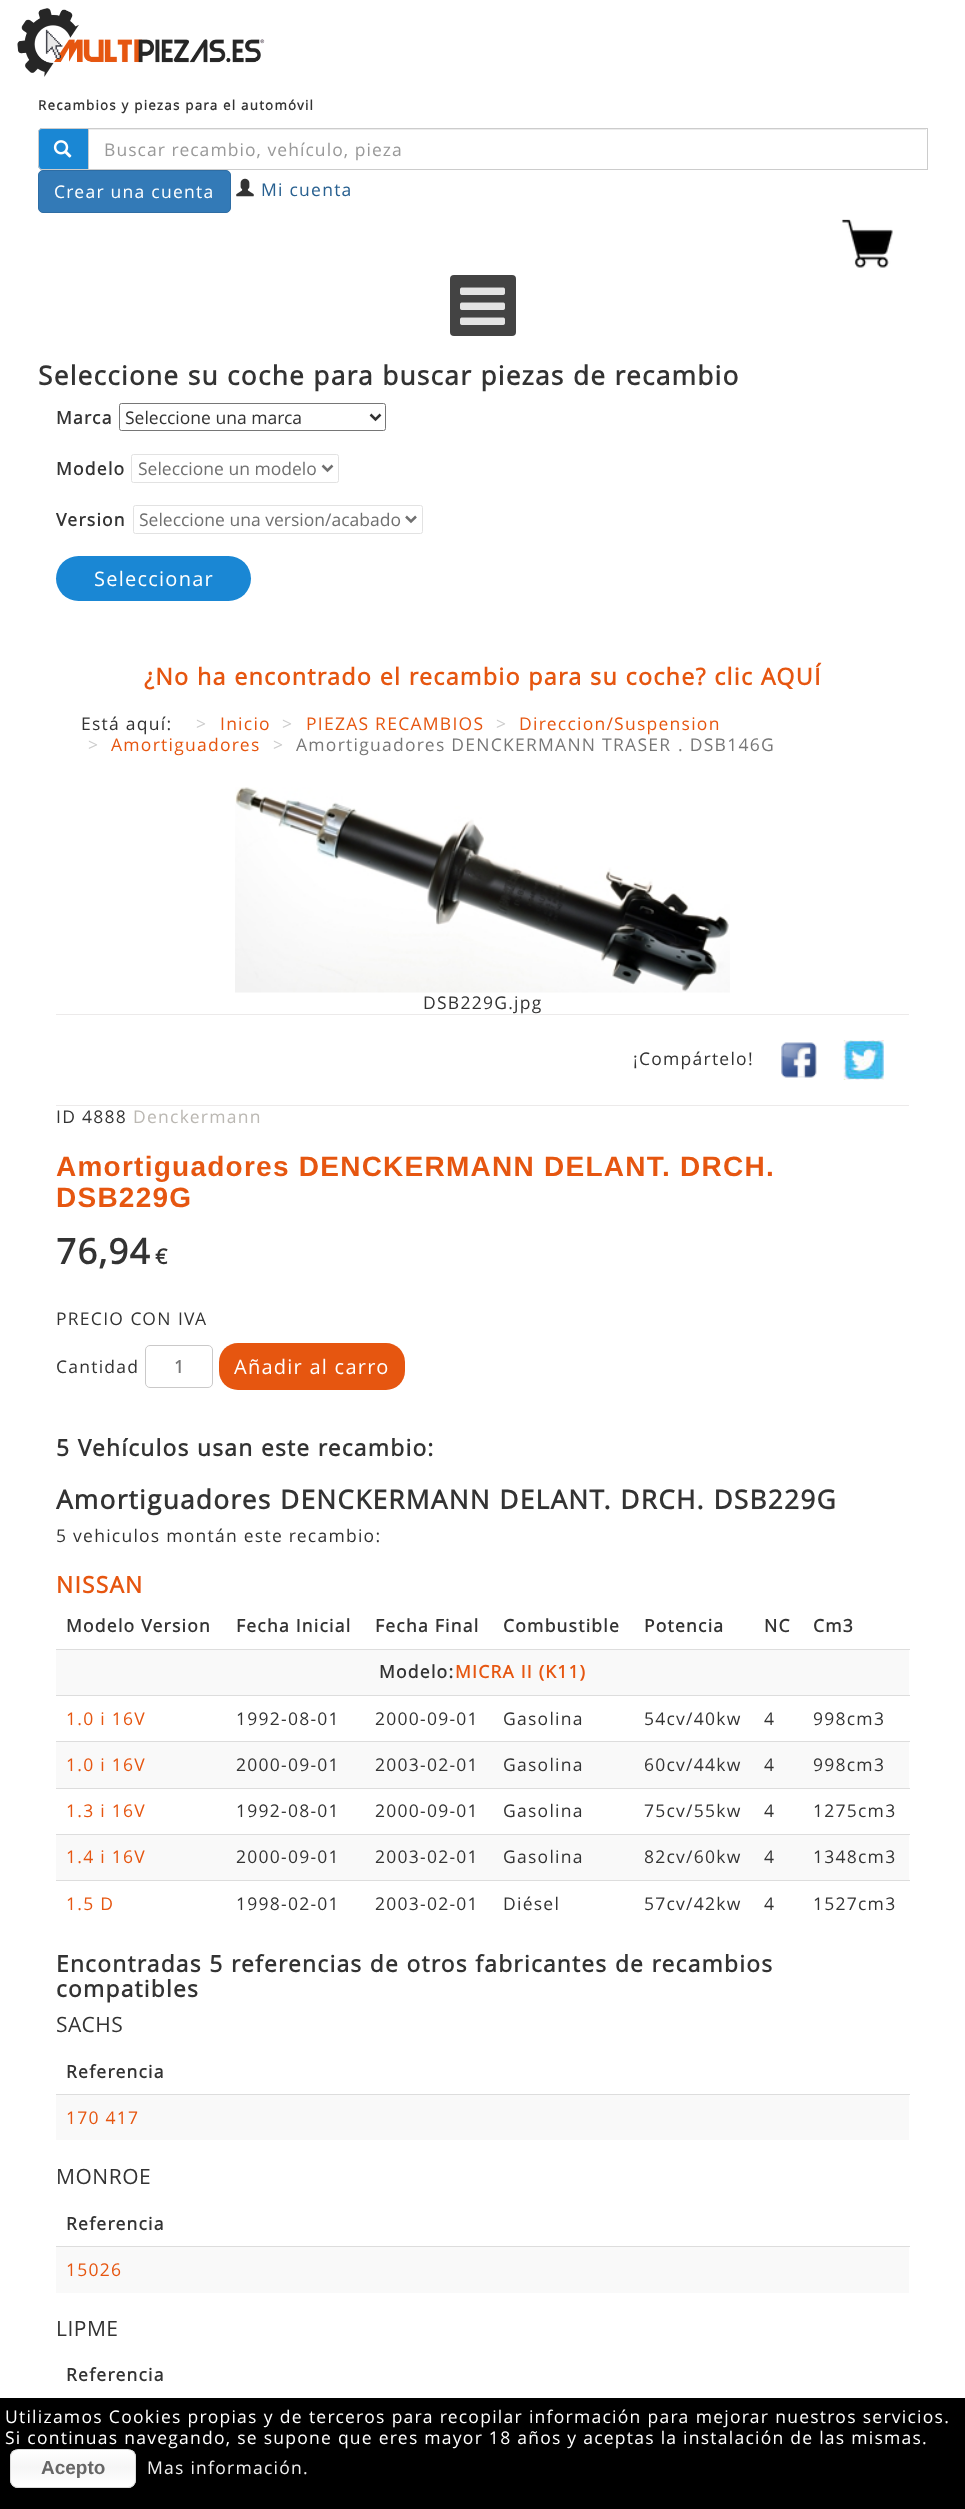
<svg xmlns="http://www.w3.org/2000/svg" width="965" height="2509">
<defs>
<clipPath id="clip1"><rect x="10" y="2449" width="126" height="39" rx="8"/></clipPath>
<linearGradient id="g1" gradientUnits="userSpaceOnUse" x1="73" y1="2450" x2="73" y2="2486"><stop offset="0" stop-color="#fff"/><stop offset="0.47" stop-color="#f6f6f6"/><stop offset="1" stop-color="#fff"/></linearGradient>
<linearGradient id="g2" gradientUnits="userSpaceOnUse" x1="73" y1="2486" x2="73" y2="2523"><stop offset="0" stop-color="#fff"/><stop offset="0.47" stop-color="#f6f6f6"/><stop offset="1" stop-color="#fff"/></linearGradient>
</defs>
<rect width="100%" height="100%" fill="#fff"/>
<image x="17" y="8" width="248" height="69" href="media/1.png"/>
<text x="38" y="110" style="font-family:Open Sans;font-size:13.3px;font-weight:bold;letter-spacing:1.25px;fill:#333">Recambios y piezas para el automóvil</text>
<path d="M43 128h45v42h-45c-3 0-5-2-5-5v-32c0-3 2-5 5-5z" fill="#1a87d4"/>
<path d="M42 128h46v42h-46c-2 0-4-2-4-5v-33c0-2 2-4 4-4zm0 1h46v40h-46c-2 0-3-2-3-4v-33c0-2 1-3 3-3z" fill="#ccc" fill-rule="evenodd"/>
<image x="53" y="140" width="19" height="18" href="media/2.png"/>
<rect x="89" y="129" width="837" height="1" fill="#ececec"/>
<rect x="88.5" y="128.5" width="839" height="41" fill="none" stroke="#ccc"/>
<text x="104" y="156" style="font-family:Open Sans;font-size:17.5px;letter-spacing:1.05px;fill:#999">Buscar recambio, vehículo, pieza</text>
<rect x="38.5" y="170.5" width="192" height="42" rx="4.5" fill="#337ab7" stroke="#2e6da4"/>
<text x="54" y="198" style="font-family:Open Sans;font-size:17.5px;letter-spacing:1.25px;fill:#fff">Crear una cuenta</text>
<image x="236" y="178" width="18" height="19" href="media/3.png"/>
<text x="261" y="196" style="font-family:Open Sans;font-size:17.5px;letter-spacing:1.25px;fill:#286090">Mi cuenta</text>
<image x="841" y="219" width="52" height="49" href="media/4.png"/>
<rect x="450" y="275" width="66" height="61" rx="4" fill="#434343"/>
<image x="460" y="287" width="45" height="38" href="media/5.png"/>
<text x="38" y="385" word-spacing="0.25" style="font-family:Open Sans;font-size:26.25px;font-weight:bold;letter-spacing:1.25px;fill:#333">Seleccione su coche para buscar piezas de recambio</text>
<text x="56" y="424" style="font-family:Open Sans;font-size:17.5px;font-weight:bold;letter-spacing:1.25px;fill:#333">Marca</text>
<rect x="119.5" y="403.5" width="266" height="27" rx="2" fill="none" stroke="#767676"/>
<path d="M370.5 414.5l5 5l5-5" fill="none" stroke="#333" stroke-width="2.5"/>
<text x="125" y="424" style="font-family:Open Sans;font-size:17.5px;fill:#333">Seleccione una marca</text>
<text x="56" y="475" style="font-family:Open Sans;font-size:17.5px;font-weight:bold;letter-spacing:1.25px;fill:#333">Modelo</text>
<rect x="131.5" y="454.5" width="207" height="28" rx="2" fill="none" stroke="#e2e2e2"/>
<path d="M322.5 465.5l5 5l5-5" fill="none" stroke="#707070" stroke-width="2.5"/>
<text x="138" y="475" style="font-family:Open Sans;font-size:17.5px;fill:#707070">Seleccione un modelo</text>
<text x="56" y="526" style="font-family:Open Sans;font-size:17.5px;font-weight:bold;letter-spacing:1.25px;fill:#333">Version</text>
<rect x="133.5" y="505.5" width="289" height="28" rx="2" fill="none" stroke="#e2e2e2"/>
<path d="M406 516.5l5 5l5-5" fill="none" stroke="#707070" stroke-width="2.5"/>
<text x="139" y="526" style="font-family:Open Sans;font-size:17.5px;fill:#707070">Seleccione una version/acabado</text>
<rect x="56" y="556" width="195" height="45" rx="22.5" fill="#1a87d4"/>
<text x="94" y="586" style="font-family:Open Sans;font-size:20px;letter-spacing:1.25px;fill:#fff">Seleccionar</text>
<text x="144" y="685" word-spacing="0.25" style="font-family:Open Sans;font-size:23.3px;font-weight:bold;letter-spacing:1.25px;fill:#e65610">¿No ha encontrado el recambio para su coche? clic AQUÍ</text>
<text x="81" y="730" style="font-family:Open Sans;font-size:17.5px;letter-spacing:1.25px;fill:#333">Está aquí:</text>
<text x="196" y="730" style="font-family:Open Sans;font-size:17.5px;letter-spacing:1.25px;fill:#ccc">&gt;</text>
<text x="220" y="730" style="font-family:Open Sans;font-size:17.5px;letter-spacing:1.25px;fill:#e65610">Inicio</text>
<text x="282" y="730" style="font-family:Open Sans;font-size:17.5px;letter-spacing:1.25px;fill:#ccc">&gt;</text>
<text x="306" y="730" style="font-family:Open Sans;font-size:17.5px;letter-spacing:1.25px;fill:#e65610">PIEZAS RECAMBIOS</text>
<text x="496" y="730" style="font-family:Open Sans;font-size:17.5px;letter-spacing:1.25px;fill:#ccc">&gt;</text>
<text x="519" y="730" style="font-family:Open Sans;font-size:17.5px;letter-spacing:1.25px;fill:#e65610">Direccion/Suspension</text>
<text x="88" y="751" style="font-family:Open Sans;font-size:17.5px;letter-spacing:1.25px;fill:#ccc">&gt;</text>
<text x="111" y="751" style="font-family:Open Sans;font-size:17.5px;letter-spacing:1.25px;fill:#e65610">Amortiguadores</text>
<text x="273" y="751" style="font-family:Open Sans;font-size:17.5px;letter-spacing:1.25px;fill:#ccc">&gt;</text>
<text x="296" y="751" style="font-family:Open Sans;font-size:17.5px;letter-spacing:1.25px;fill:#777">Amortiguadores DENCKERMANN TRASER</text>
<text x="678" y="751" style="font-family:Open Sans;font-size:17.5px;letter-spacing:1.25px;fill:#777">. DSB146G</text>
<image x="235" y="787" width="495" height="206" href="media/6.png"/>
<text x="423" y="1009" style="font-family:Open Sans;font-size:17.5px;letter-spacing:1.25px;fill:#333">DSB229G.jpg</text>
<rect x="56" y="1014" width="853" height="1" fill="#eceaea"/>
<rect x="56" y="1105" width="853" height="1" fill="#eceaea"/>
<text x="633" y="1065" style="font-family:Open Sans;font-size:17.5px;letter-spacing:1.25px;fill:#333">¡Compártelo!</text>
<image x="781" y="1042" width="36" height="36" href="media/7.png"/>
<image x="843" y="1040" width="41" height="40" href="media/8.png"/>
<text x="56" y="1123" style="font-family:Open Sans;font-size:17.5px;letter-spacing:1.25px;fill:#333">ID 4888</text>
<text x="133" y="1123" style="font-family:Open Sans;font-size:17.5px;letter-spacing:1.25px;fill:#bbb8b3">Denckermann</text>
<text x="56" y="1176" style="font-family:Liberation Sans;font-size:28px;font-weight:bold;letter-spacing:1.25px;fill:#e65610">Amortiguadores DENCKERMANN DELANT. DRCH.</text>
<text x="56" y="1207" style="font-family:Liberation Sans;font-size:28px;font-weight:bold;letter-spacing:1.25px;fill:#e65610">DSB229G</text>
<text x="56" y="1264" style="font-family:Open Sans;font-size:35px;font-weight:bold;letter-spacing:1.25px;fill:#333">76,94</text>
<text x="155" y="1264" style="font-family:Open Sans;font-size:21px;font-weight:bold;letter-spacing:1.25px;fill:#333">€</text>
<text x="56" y="1325" word-spacing="0.5" style="font-family:Open Sans;font-size:17.5px;letter-spacing:1.25px;fill:#333">PRECIO CON IVA</text>
<text x="56" y="1373" style="font-family:Open Sans;font-size:17.5px;letter-spacing:1.25px;fill:#333">Cantidad</text>
<rect x="145.5" y="1345.5" width="67" height="42" rx="4.5" fill="none" stroke="#cac9c9"/>
<text x="174" y="1373" style="font-family:Open Sans;font-size:17.5px;font-weight:bold;letter-spacing:1.05px;fill:#777">1</text>
<rect x="219" y="1343" width="186" height="47" rx="19" fill="#e65610"/>
<text x="234" y="1374" style="font-family:Open Sans;font-size:20px;letter-spacing:1.25px;fill:#fff">Añadir al carro</text>
<text x="56" y="1456" word-spacing="0.25" style="font-family:Open Sans;font-size:22.75px;font-weight:bold;letter-spacing:1.25px;fill:#333">5 Vehículos usan este recambio:</text>
<text x="56" y="1509" word-spacing="0.5" style="font-family:Open Sans;font-size:26.25px;font-weight:bold;letter-spacing:1.25px;fill:#333">Amortiguadores DENCKERMANN DELANT. DRCH. DSB229G</text>
<text x="56" y="1542" style="font-family:Open Sans;font-size:17.5px;letter-spacing:1.25px;fill:#333">5 vehiculos montán este recambio:</text>
<text x="56" y="1593" style="font-family:Open Sans;font-size:22.75px;font-weight:bold;letter-spacing:1.25px;fill:#e65610">NISSAN</text>
<text x="66" y="1632" style="font-family:Open Sans;font-size:17.5px;font-weight:bold;letter-spacing:1.25px;fill:#333">Modelo Version</text>
<text x="236" y="1632" style="font-family:Open Sans;font-size:17.5px;font-weight:bold;letter-spacing:1.25px;fill:#333">Fecha Inicial</text>
<text x="375" y="1632" style="font-family:Open Sans;font-size:17.5px;font-weight:bold;letter-spacing:1.25px;fill:#333">Fecha Final</text>
<text x="503" y="1632" style="font-family:Open Sans;font-size:17.5px;font-weight:bold;letter-spacing:1.25px;fill:#333">Combustible</text>
<text x="644" y="1632" style="font-family:Open Sans;font-size:17.5px;font-weight:bold;letter-spacing:1.25px;fill:#333">Potencia</text>
<text x="764" y="1632" style="font-family:Open Sans;font-size:17.5px;font-weight:bold;letter-spacing:1.25px;fill:#333">NC</text>
<text x="813" y="1632" style="font-family:Open Sans;font-size:17.5px;font-weight:bold;letter-spacing:1.25px;fill:#333">Cm3</text>
<rect x="56" y="1650" width="853" height="45" fill="#f9f9f9"/>
<rect x="56" y="1649" width="854" height="1" fill="#ddd"/>
<text x="379" y="1678" style="font-family:Open Sans;font-size:17.5px;font-weight:bold;letter-spacing:1.25px;fill:#333">Modelo:</text>
<text x="455" y="1678" style="font-family:Open Sans;font-size:17.5px;font-weight:bold;letter-spacing:1.25px;fill:#e65610">MICRA II (K11)</text>
<text x="66" y="1725" style="font-family:Open Sans;font-size:17.5px;letter-spacing:1.25px;fill:#e65610">1.0 i 16V</text>
<text x="236" y="1725" style="font-family:Open Sans;font-size:17.5px;letter-spacing:1.25px;fill:#333">1992-08-01</text>
<text x="375" y="1725" style="font-family:Open Sans;font-size:17.5px;letter-spacing:1.25px;fill:#333">2000-09-01</text>
<text x="503" y="1725" style="font-family:Open Sans;font-size:17.5px;letter-spacing:1.25px;fill:#333">Gasolina</text>
<text x="644" y="1725" style="font-family:Open Sans;font-size:17.5px;letter-spacing:1.25px;fill:#333">54cv/40kw</text>
<text x="764" y="1725" style="font-family:Open Sans;font-size:17.5px;letter-spacing:1.25px;fill:#333">4</text>
<rect x="56" y="1695" width="854" height="1" fill="#ddd"/>
<text x="813" y="1725" style="font-family:Open Sans;font-size:17.5px;letter-spacing:1.25px;fill:#333">998cm3</text>
<rect x="56" y="1742" width="853" height="46" fill="#f9f9f9"/>
<text x="66" y="1771" style="font-family:Open Sans;font-size:17.5px;letter-spacing:1.25px;fill:#e65610">1.0 i 16V</text>
<text x="236" y="1771" style="font-family:Open Sans;font-size:17.5px;letter-spacing:1.25px;fill:#333">2000-09-01</text>
<text x="375" y="1771" style="font-family:Open Sans;font-size:17.5px;letter-spacing:1.25px;fill:#333">2003-02-01</text>
<text x="503" y="1771" style="font-family:Open Sans;font-size:17.5px;letter-spacing:1.25px;fill:#333">Gasolina</text>
<text x="644" y="1771" style="font-family:Open Sans;font-size:17.5px;letter-spacing:1.25px;fill:#333">60cv/44kw</text>
<text x="764" y="1771" style="font-family:Open Sans;font-size:17.5px;letter-spacing:1.25px;fill:#333">4</text>
<rect x="56" y="1741" width="854" height="1" fill="#ddd"/>
<text x="813" y="1771" style="font-family:Open Sans;font-size:17.5px;letter-spacing:1.25px;fill:#333">998cm3</text>
<text x="66" y="1817" style="font-family:Open Sans;font-size:17.5px;letter-spacing:1.25px;fill:#e65610">1.3 i 16V</text>
<text x="236" y="1817" style="font-family:Open Sans;font-size:17.5px;letter-spacing:1.25px;fill:#333">1992-08-01</text>
<text x="375" y="1817" style="font-family:Open Sans;font-size:17.5px;letter-spacing:1.25px;fill:#333">2000-09-01</text>
<text x="503" y="1817" style="font-family:Open Sans;font-size:17.5px;letter-spacing:1.25px;fill:#333">Gasolina</text>
<text x="644" y="1817" style="font-family:Open Sans;font-size:17.5px;letter-spacing:1.25px;fill:#333">75cv/55kw</text>
<text x="764" y="1817" style="font-family:Open Sans;font-size:17.5px;letter-spacing:1.25px;fill:#333">4</text>
<rect x="56" y="1788" width="854" height="1" fill="#ddd"/>
<text x="813" y="1817" style="font-family:Open Sans;font-size:17.5px;letter-spacing:1.25px;fill:#333">1275cm3</text>
<rect x="56" y="1835" width="853" height="45" fill="#f9f9f9"/>
<text x="66" y="1863" style="font-family:Open Sans;font-size:17.5px;letter-spacing:1.25px;fill:#e65610">1.4 i 16V</text>
<text x="236" y="1863" style="font-family:Open Sans;font-size:17.5px;letter-spacing:1.25px;fill:#333">2000-09-01</text>
<text x="375" y="1863" style="font-family:Open Sans;font-size:17.5px;letter-spacing:1.25px;fill:#333">2003-02-01</text>
<text x="503" y="1863" style="font-family:Open Sans;font-size:17.5px;letter-spacing:1.25px;fill:#333">Gasolina</text>
<text x="644" y="1863" style="font-family:Open Sans;font-size:17.5px;letter-spacing:1.25px;fill:#333">82cv/60kw</text>
<text x="764" y="1863" style="font-family:Open Sans;font-size:17.5px;letter-spacing:1.25px;fill:#333">4</text>
<rect x="56" y="1834" width="854" height="1" fill="#ddd"/>
<text x="813" y="1863" style="font-family:Open Sans;font-size:17.5px;letter-spacing:1.25px;fill:#333">1348cm3</text>
<text x="66" y="1910" style="font-family:Open Sans;font-size:17.5px;letter-spacing:1.25px;fill:#e65610">1.5 D</text>
<text x="236" y="1910" style="font-family:Open Sans;font-size:17.5px;letter-spacing:1.25px;fill:#333">1998-02-01</text>
<text x="375" y="1910" style="font-family:Open Sans;font-size:17.5px;letter-spacing:1.25px;fill:#333">2003-02-01</text>
<text x="503" y="1910" style="font-family:Open Sans;font-size:17.5px;letter-spacing:1.25px;fill:#333">Diésel</text>
<text x="644" y="1910" style="font-family:Open Sans;font-size:17.5px;letter-spacing:1.25px;fill:#333">57cv/42kw</text>
<text x="764" y="1910" style="font-family:Open Sans;font-size:17.5px;letter-spacing:1.25px;fill:#333">4</text>
<rect x="56" y="1880" width="854" height="1" fill="#ddd"/>
<text x="813" y="1910" style="font-family:Open Sans;font-size:17.5px;letter-spacing:1.25px;fill:#333">1527cm3</text>
<text x="56" y="1972" word-spacing="0.25" style="font-family:Open Sans;font-size:22.75px;font-weight:bold;letter-spacing:1.25px;fill:#333">Encontradas 5 referencias de otros fabricantes de recambios</text>
<text x="56" y="1997" style="font-family:Open Sans;font-size:22.75px;font-weight:bold;letter-spacing:1.25px;fill:#333">compatibles</text>
<text x="56" y="2032" style="font-family:Open Sans;font-size:21px;letter-spacing:0.5px;fill:#333">SACHS</text>
<text x="66" y="2078" style="font-family:Open Sans;font-size:17.5px;font-weight:bold;letter-spacing:1.25px;fill:#333">Referencia</text>
<rect x="56" y="2095" width="853" height="45" fill="#f9f9f9"/>
<rect x="56" y="2094" width="854" height="1" fill="#ddd"/>
<text x="66" y="2124" style="font-family:Open Sans;font-size:17.5px;letter-spacing:1.25px;fill:#e65610">170 417</text>
<text x="56" y="2184" style="font-family:Open Sans;font-size:21px;letter-spacing:0.5px;fill:#333">MONROE</text>
<text x="66" y="2230" style="font-family:Open Sans;font-size:17.5px;font-weight:bold;letter-spacing:1.25px;fill:#333">Referencia</text>
<rect x="56" y="2247" width="853" height="46" fill="#f9f9f9"/>
<rect x="56" y="2246" width="854" height="1" fill="#ddd"/>
<text x="66" y="2276" style="font-family:Open Sans;font-size:17.5px;letter-spacing:1.25px;fill:#e65610">15026</text>
<text x="56" y="2336" style="font-family:Open Sans;font-size:21px;letter-spacing:0.5px;fill:#333">LIPME</text>
<text x="66" y="2381" style="font-family:Open Sans;font-size:17.5px;font-weight:bold;letter-spacing:1.25px;fill:#333">Referencia</text>
<rect y="2398" width="965" height="111" fill="#000"/>
<text x="5" y="2423" word-spacing="0.25" style="font-family:Open Sans;font-size:17.5px;letter-spacing:1.25px;fill:#fff">Utilizamos Cookies propias y de terceros para recopilar información para mejorar nuestros servicios.</text>
<text x="5" y="2444" style="font-family:Open Sans;font-size:17.5px;letter-spacing:1.25px;fill:#fff">Si continuas navegando, se supone que eres mayor 18 años y aceptas la instalación de las mismas.</text>
<g clip-path="url(#clip1)">
<rect x="10" y="2450" width="126" height="36" fill="url(#g1)"/>
<rect x="10" y="2486" width="126" height="2" fill="url(#g2)"/>
</g>
<rect x="10.5" y="2449.5" width="125" height="38" rx="7.5" fill="none" stroke="#dcdcdc"/>
<text x="41" y="2474" style="font-family:Liberation Sans;font-size:19px;font-weight:bold;fill:#666">Acepto</text>
<text x="147" y="2474" style="font-family:Open Sans;font-size:17.5px;letter-spacing:1.25px;fill:#eee">Mas información.</text>
</svg>
